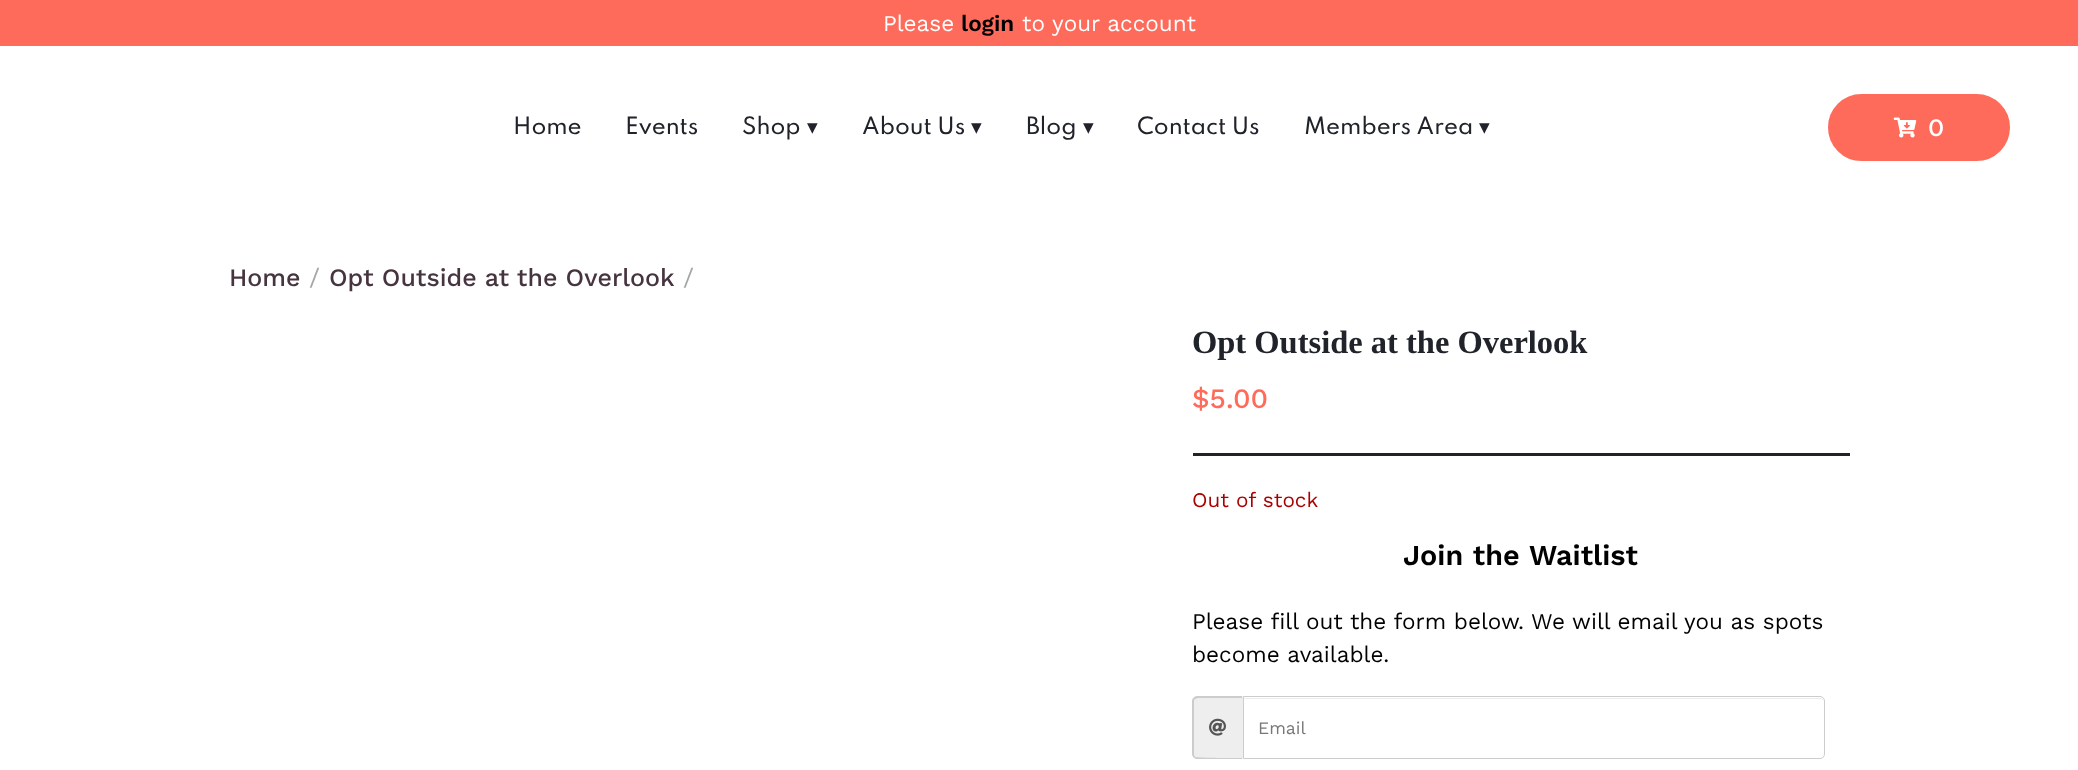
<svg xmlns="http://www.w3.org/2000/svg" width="2078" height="770">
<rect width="100%" height="100%" fill="#fff"/>
<rect width="2078" height="46" fill="#ff6b5a"/>
<text x="883" y="31" style="font-family:Work Sans;font-size:22.5px;fill:#fff">Please</text>
<text x="961" y="31" style="font-family:Work Sans;font-size:22.5px;font-weight:600;fill:#000">login</text>
<text x="1022" y="31" style="font-family:Work Sans;font-size:22.5px;fill:#fff">to your account</text>
<text x="513" y="134" style="font-family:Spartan;font-size:21.25px;font-weight:500;fill:#20232a">Home</text>
<text x="625" y="134" style="font-family:Spartan;font-size:21.25px;font-weight:500;fill:#20232a">Events</text>
<text x="742" y="134" style="font-family:Spartan;font-size:21.25px;font-weight:500;fill:#20232a">Shop</text>
<text x="807" y="134" style="font-family:DejaVu Sans;font-size:21.25px;fill:#20232a">▾</text>
<text x="862" y="134" style="font-family:Spartan;font-size:21.25px;font-weight:500;fill:#20232a">About Us</text>
<text x="971" y="134" style="font-family:DejaVu Sans;font-size:21.25px;fill:#20232a">▾</text>
<text x="1026" y="134" style="font-family:Spartan;font-size:21.25px;font-weight:500;fill:#20232a">Blog</text>
<text x="1083" y="134" style="font-family:DejaVu Sans;font-size:21.25px;fill:#20232a">▾</text>
<text x="1137" y="134" style="font-family:Spartan;font-size:21.25px;font-weight:500;fill:#20232a">Contact Us</text>
<text x="1304" y="134" style="font-family:Spartan;font-size:21.25px;font-weight:500;fill:#20232a">Members Area</text>
<text x="1479" y="134" style="font-family:DejaVu Sans;font-size:21.25px;fill:#20232a">▾</text>
<rect x="1829.5" y="95.5" width="179" height="64" rx="32" fill="#ff6b5a" stroke="#ff6b5a" stroke-width="3"/>
<image x="1893" y="117" width="24" height="21" href="media/1.png"/>
<text x="1928" y="136" style="font-family:Spartan;font-size:20px;font-weight:600;fill:#fff">0</text>
<text x="229" y="286" style="font-family:Work Sans;font-size:25px;font-weight:500;fill:#46343f">Home</text>
<text x="309" y="286" style="font-family:Work Sans;font-size:25px;fill:#a5a6aa">/</text>
<text x="329" y="286" style="font-family:Work Sans;font-size:25px;font-weight:500;fill:#46343f">Opt Outside at the Overlook</text>
<text x="683" y="286" style="font-family:Work Sans;font-size:25px;fill:#a5a6aa">/</text>
<text x="1192" y="353" style="font-family:Liberation Serif;font-size:32.5px;font-weight:bold;fill:#20232a">Opt Outside at the Overlook</text>
<rect x="1193" y="453" width="657" height="3" fill="#20232a"/>
<text x="1192" y="408" style="font-family:Work Sans;font-size:28px;font-weight:500;fill:#ff6b5a">$5.00</text>
<text x="1192" y="507" style="font-family:Work Sans;font-size:20.75px;fill:#a00">Out of stock</text>
<text x="1403" y="565" word-spacing="1" style="font-family:Work Sans;font-size:28.75px;font-weight:600;fill:#000">Join the Waitlist</text>
<text x="1192" y="629" style="font-family:Work Sans;font-size:22.5px;fill:#000">Please fill out the form below. We will email you as spots</text>
<text x="1192" y="662" style="font-family:Work Sans;font-size:22.5px;fill:#000">become available.</text>
<path d="M1198 696h45v63h-45c-3 0-5-2-5-5v-53c0-3 2-5 5-5z" fill="#eee"/>
<path d="M1198 696h44v63h-44c-3 0-6-2-6-5v-53c0-3 3-5 6-5zm0 2h44v60c-5 0-44 0-47-1l-1-2v-55l1-1z" fill="#ccc" fill-rule="evenodd"/>
<image x="1209" y="718" width="17" height="18" href="media/2.png"/>
<path d="M1244 699h576c2 0 4 1 4 3c0-2-2-4-4-4h-576z" fill="#ececec"/>
<path d="M1243.5 696.5h576.5c2.5 0 4.5 2 4.5 4.5v53c0 2.5-2 4.5-4.5 4.5h-576.5z" fill="none" stroke="#ccc"/>
<text x="1258" y="734" style="font-family:Work Sans;font-size:17.5px;fill:#777">Email</text>
</svg>
